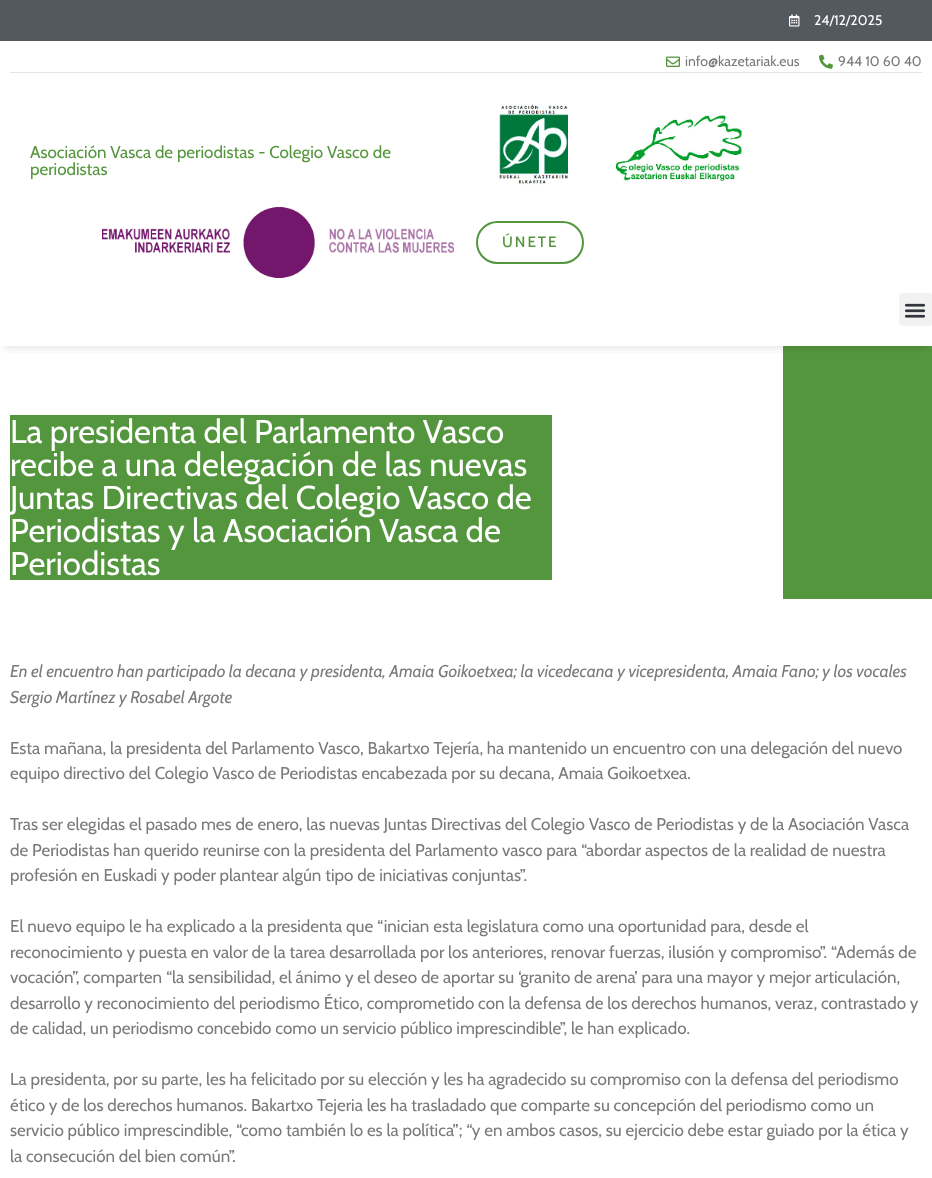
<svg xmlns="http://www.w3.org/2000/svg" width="932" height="1178">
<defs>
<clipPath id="clip1"><rect x="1" y="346" width="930" height="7"/></clipPath>
</defs>
<rect width="100%" height="100%" fill="#fff"/>
<rect width="932" height="41" fill="#54595f"/>
<image x="789" y="14" width="11" height="13" href="media/1.png"/>
<text x="814" y="25" style="font-family:Cabin;font-size:14px;fill:#fff">24/12/2025</text>
<rect x="10" y="72" width="912" height="1" fill="#e5e5e5"/>
<image x="666" y="56" width="14" height="11" href="media/2.png"/>
<text x="685" y="66" style="font-family:Cabin;font-size:14px;fill:#7a7a7a">info@kazetariak.eus</text>
<image x="819" y="54" width="14" height="15" href="media/3.png"/>
<text x="838" y="66" style="font-family:Cabin;font-size:14px;fill:#7a7a7a">944 10 60 40</text>
<text x="30" y="158" style="font-family:Cabin;font-size:17px;fill:#54963d">Asociación Vasca de periodistas - Colegio Vasco de</text>
<text x="30" y="175" style="font-family:Cabin;font-size:17px;fill:#54963d">periodistas</text>
<image x="499" y="104" width="69" height="81" href="media/4.png"/>
<image x="615" y="115" width="128" height="68" href="media/5.png"/>
<image x="102" y="207" width="353" height="71" href="media/6.png"/>
<rect x="477" y="222" width="106" height="41" rx="20.5" fill="none" stroke="#54963d" stroke-width="2"/>
<text x="502" y="247" style="font-family:Cabin;font-size:15px;font-weight:500;letter-spacing:2px;fill:#54963d">ÚNETE</text>
<rect x="783" y="346" width="149" height="253" fill="#54963d"/>
<g clip-path="url(#clip1)">
<rect x="4" y="293" width="924" height="55" fill="#0000001c" filter="blur(5px)"/>
</g>
<rect x="899" y="293" width="33" height="33" rx="3" fill="#f2f2f2"/>
<image x="904" y="303" width="22" height="15" href="media/7.png"/>
<rect x="10" y="415" width="542" height="165" fill="#54963d"/>
<text x="10" y="443" style="font-family:Cabin;font-size:33px;fill:#fff">La presidenta del Parlamento Vasco</text>
<text x="10" y="476" style="font-family:Cabin;font-size:33px;fill:#fff">recibe a una delegación de las nuevas</text>
<text x="10" y="509" style="font-family:Cabin;font-size:33px;fill:#fff">Juntas Directivas del Colegio Vasco de</text>
<text x="10" y="542" style="font-family:Cabin;font-size:33px;fill:#fff">Periodistas y la Asociación Vasca de</text>
<text x="10" y="575" style="font-family:Cabin;font-size:33px;fill:#fff">Periodistas</text>
<text x="10" y="677" style="font-family:Cabin;font-size:17px;font-style:italic;fill:#7a7a7a">En el encuentro han participado la decana y presidenta, Amaia Goikoetxea; la vicedecana y vicepresidenta, Amaia Fano; y los vocales</text>
<text x="10" y="703" style="font-family:Cabin;font-size:17px;font-style:italic;fill:#7a7a7a">Sergio Martínez y Rosabel Argote</text>
<text x="10" y="754" style="font-family:Cabin;font-size:17px;fill:#7a7a7a">Esta mañana, la presidenta del Parlamento Vasco, Bakartxo Tejería, ha mantenido un encuentro con una delegación del nuevo</text>
<text x="10" y="779" style="font-family:Cabin;font-size:17px;fill:#7a7a7a">equipo directivo del Colegio Vasco de Periodistas encabezada por su decana, Amaia Goikoetxea.</text>
<text x="10" y="830" style="font-family:Cabin;font-size:17px;fill:#7a7a7a">Tras ser elegidas el pasado mes de enero, las nuevas Juntas Directivas del Colegio Vasco de Periodistas y de la Asociación Vasca</text>
<text x="10" y="856" style="font-family:Cabin;font-size:17px;fill:#7a7a7a">de Periodistas han querido reunirse con la presidenta del Parlamento vasco para “abordar aspectos de la realidad de nuestra</text>
<text x="10" y="881" style="font-family:Cabin;font-size:17px;fill:#7a7a7a">profesión en Euskadi y poder plantear algún tipo de iniciativas conjuntas”.</text>
<text x="10" y="932" style="font-family:Cabin;font-size:17px;fill:#7a7a7a">El nuevo equipo le ha explicado a la presidenta que “inician esta legislatura como una oportunidad para, desde el</text>
<text x="10" y="958" style="font-family:Cabin;font-size:17px;fill:#7a7a7a">reconocimiento y puesta en valor de la tarea desarrollada por los anteriores, renovar fuerzas, ilusión y compromiso”. “Además de</text>
<text x="10" y="983" style="font-family:Cabin;font-size:17px;fill:#7a7a7a">vocación”, comparten “la sensibilidad, el ánimo y el deseo de aportar su ‘granito de arena’ para una mayor y mejor articulación,</text>
<text x="10" y="1009" style="font-family:Cabin;font-size:17px;fill:#7a7a7a">desarrollo y reconocimiento del periodismo Ético, comprometido con la defensa de los derechos humanos, veraz, contrastado y</text>
<text x="10" y="1034" style="font-family:Cabin;font-size:17px;fill:#7a7a7a">de calidad, un periodismo concebido como un servicio público imprescindible”, le han explicado.</text>
<text x="10" y="1085" style="font-family:Cabin;font-size:17px;fill:#7a7a7a">La presidenta, por su parte, les ha felicitado por su elección y les ha agradecido su compromiso con la defensa del periodismo</text>
<text x="10" y="1111" style="font-family:Cabin;font-size:17px;fill:#7a7a7a">ético y de los derechos humanos. Bakartxo Tejeria les ha trasladado que comparte su concepción del periodismo como un</text>
<text x="10" y="1136" style="font-family:Cabin;font-size:17px;fill:#7a7a7a">servicio público imprescindible, “como también lo es la política”; “y en ambos casos, su ejercicio debe estar guiado por la ética y</text>
<text x="10" y="1162" style="font-family:Cabin;font-size:17px;fill:#7a7a7a">la consecución del bien común”.</text>
</svg>
